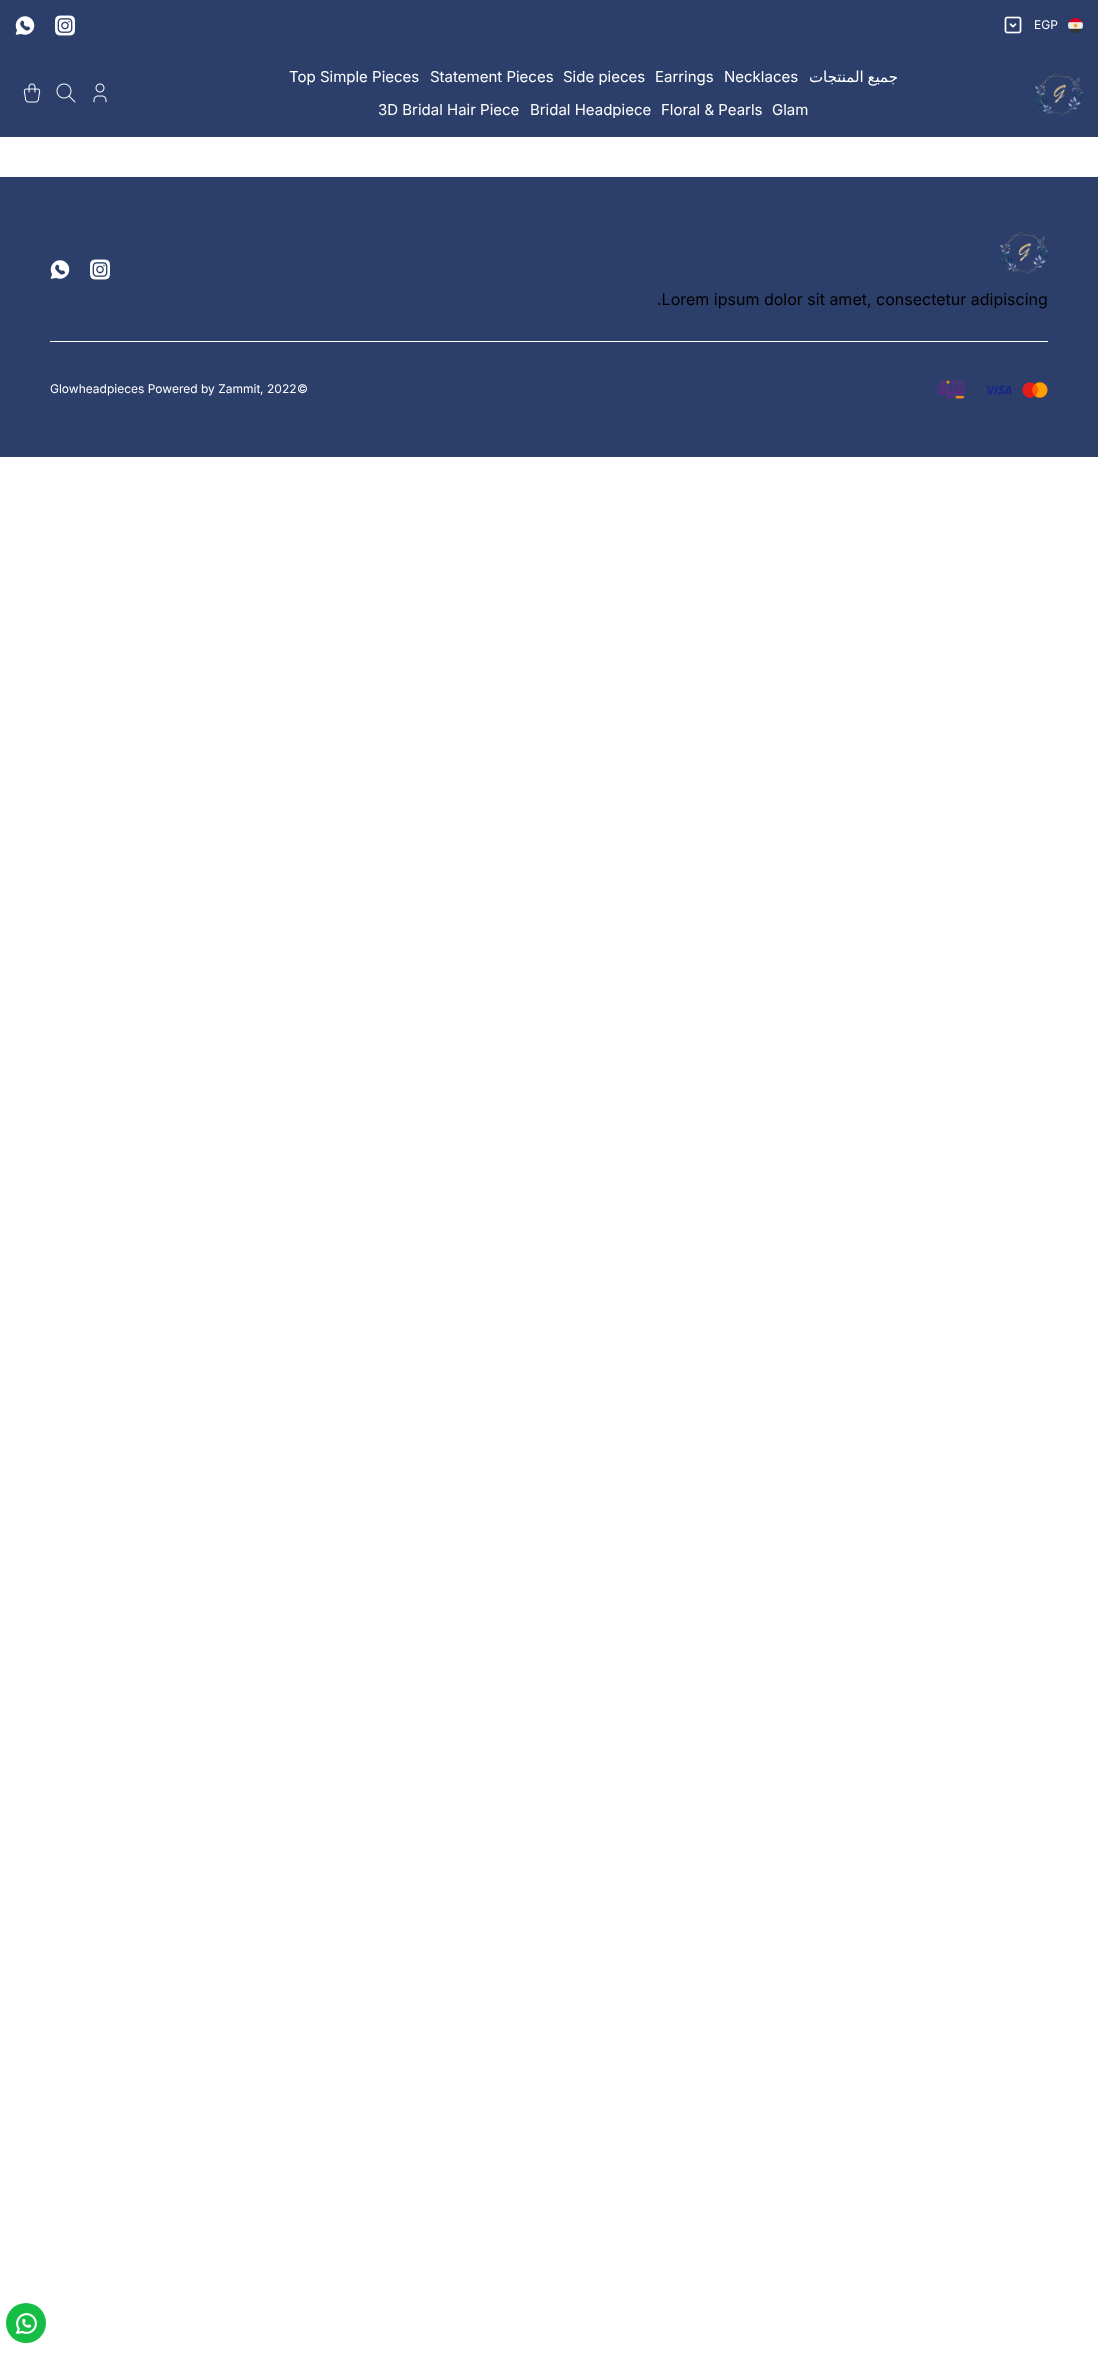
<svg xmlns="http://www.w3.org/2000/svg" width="1098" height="2353">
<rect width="100%" height="100%" fill="#fff"/>
<rect width="1098" height="137" fill="#2c3f6b"/>
<image x="15" y="16" width="20" height="19" href="media/1.png"/>
<image x="55" y="15" width="20" height="21" href="media/2.png"/>
<image x="1004" y="16" width="18" height="18" href="media/3.png"/>
<text x="1034" y="29" style="font-family:Inter;font-size:12px;fill:#fff">EGP</text>
<image x="1068" y="18" width="15" height="15" href="media/4.png"/>
<image x="23" y="83" width="18" height="20" href="media/5.png"/>
<image x="56" y="83" width="20" height="20" href="media/6.png"/>
<image x="93" y="83" width="14" height="20" href="media/7.png"/>
<text x="289" y="82" style="font-family:Inter;font-size:15px;fill:#fff">Top Simple Pieces</text>
<text x="430" y="82" style="font-family:Inter;font-size:15px;fill:#fff">Statement Pieces</text>
<text x="563" y="82" style="font-family:Inter;font-size:15px;fill:#fff">Side pieces</text>
<text x="655" y="82" style="font-family:Inter;font-size:15px;fill:#fff">Earrings</text>
<text x="724" y="82" style="font-family:Inter;font-size:15px;fill:#fff">Necklaces</text>
<text x="898" y="82" word-spacing="-1" style="font-family:DejaVu Sans;font-size:15px;direction:rtl;fill:#fff">جميع المنتجات</text>
<text x="378" y="115" style="font-family:Inter;font-size:15px;fill:#fff">3D Bridal Hair Piece</text>
<text x="530" y="115" style="font-family:Inter;font-size:15px;fill:#fff">Bridal Headpiece</text>
<text x="661" y="115" style="font-family:Inter;font-size:15px;fill:#fff">Floral &amp; Pearls</text>
<text x="772" y="115" style="font-family:Inter;font-size:15px;fill:#fff">Glam</text>
<image x="1035" y="73" width="48" height="43" href="media/8.png"/>
<rect y="177" width="1098" height="280" fill="#2c3f6b"/>
<image x="50" y="260" width="20" height="19" href="media/1.png"/>
<image x="90" y="259" width="20" height="21" href="media/2.png"/>
<image x="1000" y="232" width="48" height="42" href="media/9.png"/>
<text x="657" y="305" style="font-family:Inter;font-size:16px;fill:#000">.Lorem ipsum dolor sit amet, consectetur adipiscing</text>
<rect x="50" y="341" width="998" height="1" fill="#fff"/>
<text x="50" y="393" style="font-family:Inter;font-size:12px;fill:#fff">Glowheadpieces Powered by Zammit</text>
<text x="260" y="393" style="font-family:Inter;font-size:12px;fill:#fff">,</text>
<text x="267" y="393" style="font-family:Inter;font-size:12px;fill:#fff">2022</text>
<text x="297" y="393" style="font-family:Inter;font-size:12px;fill:#fff">©</text>
<image x="937" y="380" width="28" height="19" href="media/10.png"/>
<image x="985" y="385" width="27" height="10" href="media/11.png"/>
<image x="1022" y="382" width="26" height="16" href="media/12.png"/>
<circle cx="26" cy="2323" r="20" fill="#16be45"/>
<image x="16" y="2313" width="21" height="21" href="media/13.png"/>
</svg>
